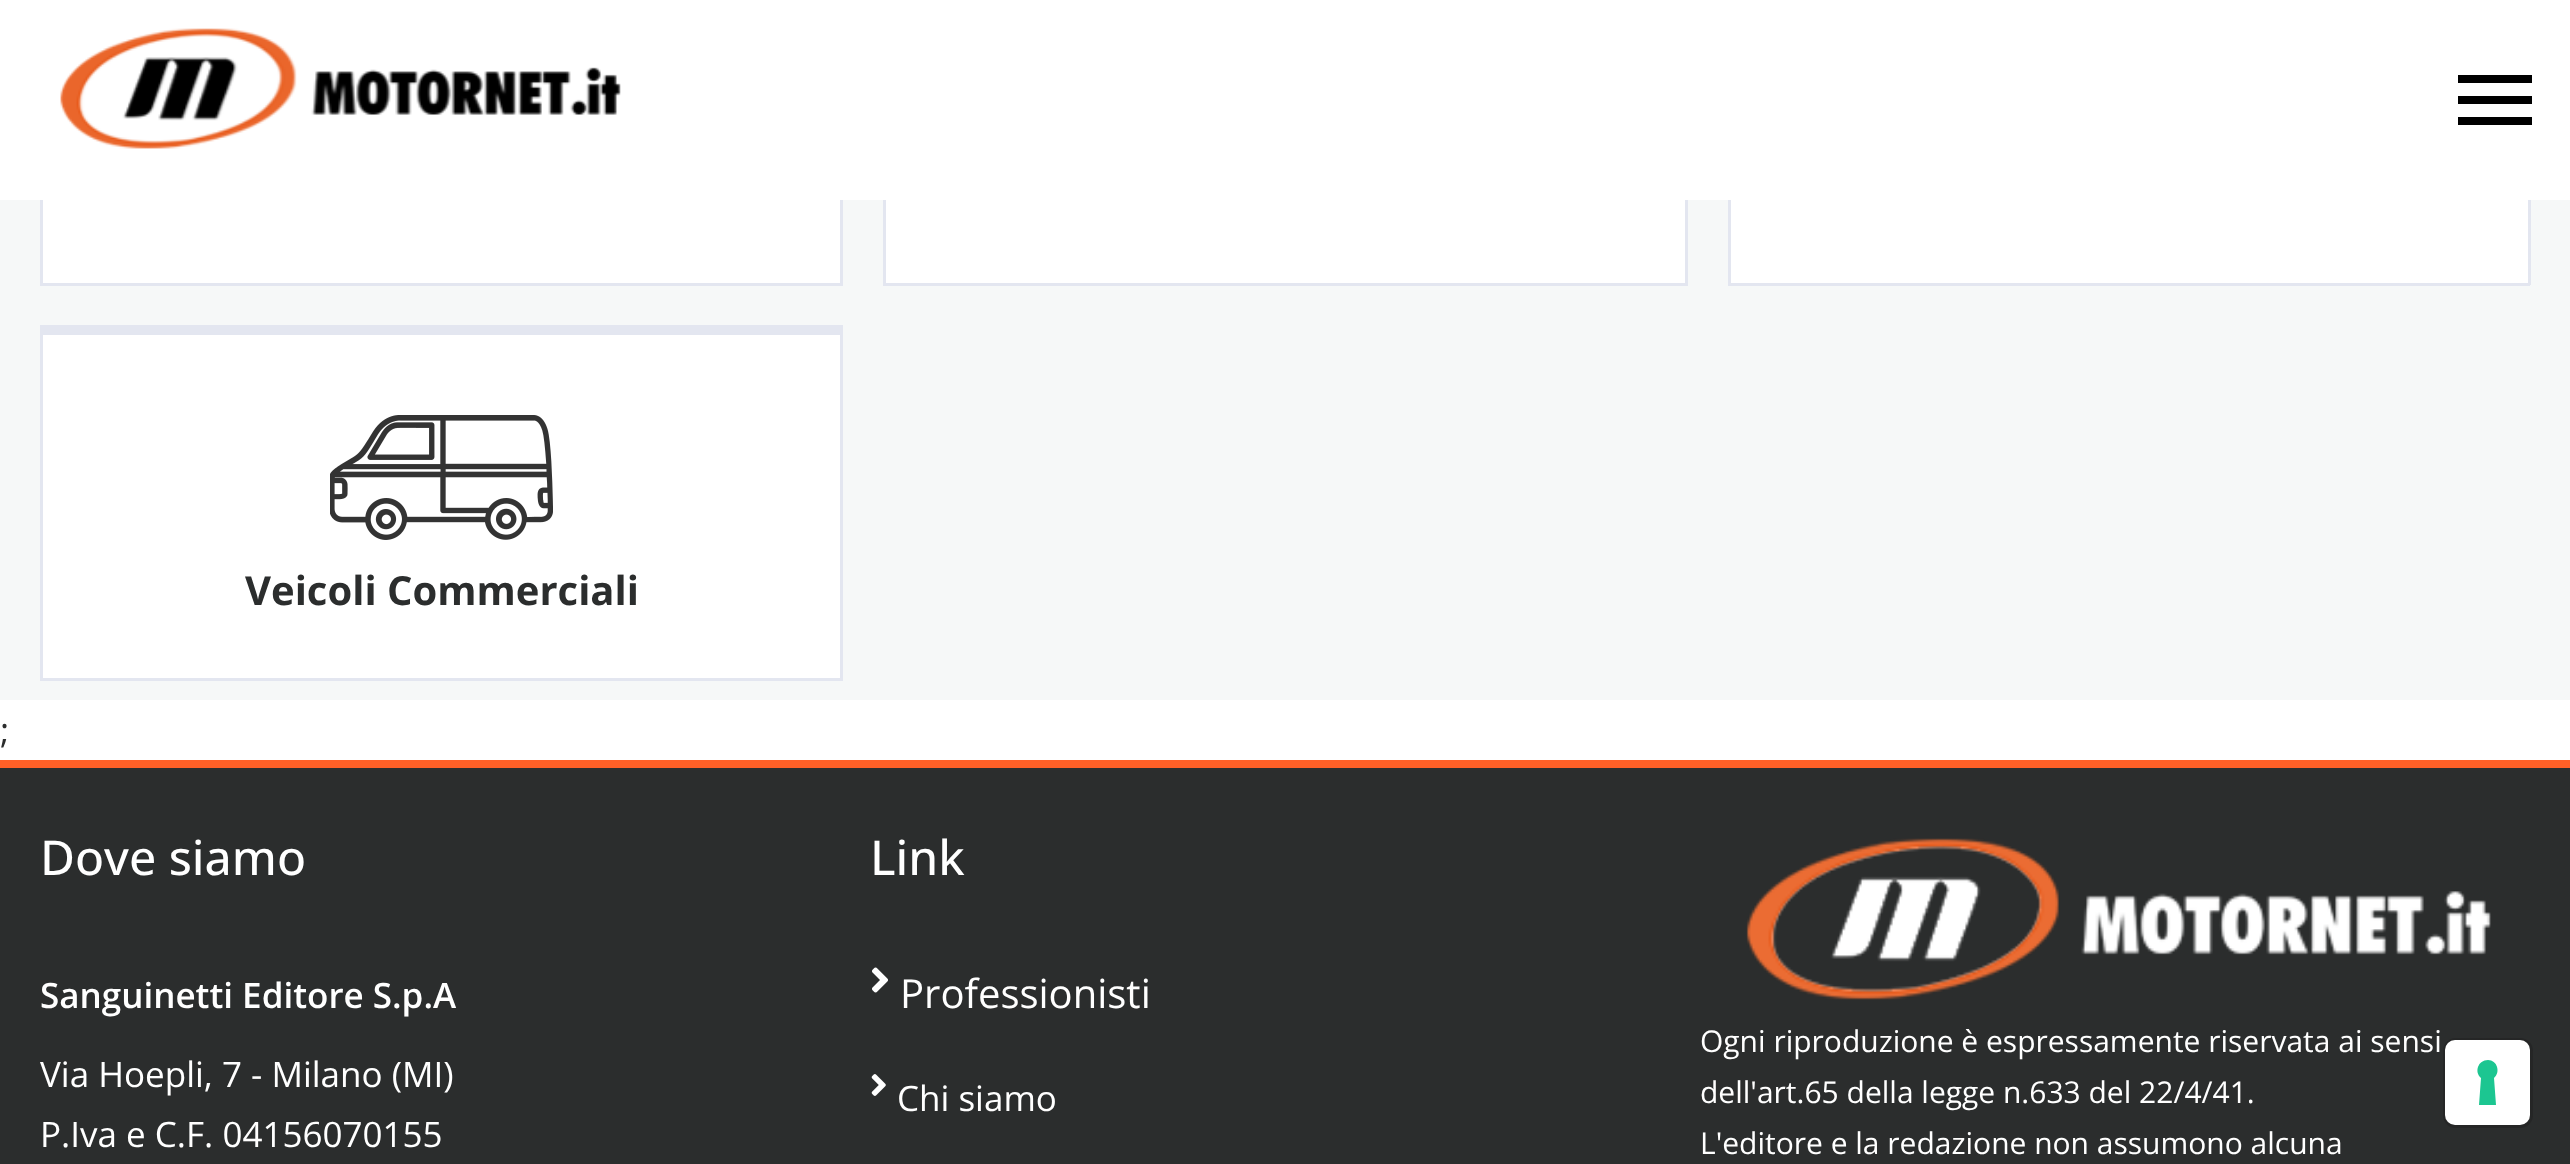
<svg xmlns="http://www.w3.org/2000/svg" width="2570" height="1164">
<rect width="100%" height="100%" fill="#fff"/>
<image x="60" y="28" width="561" height="121" href="media/1.png"/>
<path d="M2458 125h74v-8h-74zm0-21h74v-8h-74zm0-29v8h74v-8z" fill="#000"/>
<rect y="200" width="2570" height="500" fill="#f6f8f8"/>
<rect x="43" y="200" width="797" height="83" fill="#fff"/>
<rect x="840" y="200" width="3" height="85" fill="#e3e6f0"/>
<rect x="40" y="283" width="803" height="3" fill="#e3e6f0"/>
<rect x="40" y="200" width="3" height="85" fill="#e3e6f0"/>
<rect x="886" y="200" width="799" height="83" fill="#fff"/>
<rect x="1685" y="200" width="3" height="85" fill="#e3e6f0"/>
<rect x="883" y="283" width="805" height="3" fill="#e3e6f0"/>
<rect x="883" y="200" width="3" height="85" fill="#e3e6f0"/>
<rect x="1731" y="200" width="797" height="83" fill="#fff"/>
<rect x="2528" y="200" width="3" height="85" fill="#e3e6f0"/>
<rect x="1728" y="283" width="802" height="3" fill="#e3e6f0"/>
<rect x="1728" y="200" width="3" height="85" fill="#e3e6f0"/>
<rect x="43" y="335" width="797" height="343" fill="#fff"/>
<rect x="43" y="325" width="797" height="10" fill="#e3e6f0"/>
<rect x="840" y="325" width="3" height="355" fill="#e3e6f0"/>
<rect x="40" y="678" width="803" height="3" fill="#e3e6f0"/>
<rect x="40" y="325" width="3" height="355" fill="#e3e6f0"/>
<image x="330" y="415" width="223" height="125" href="media/2.png"/>
<text x="245" y="605" style="font-family:Open Sans;font-size:40px;font-weight:bold;fill:#2b2d2d">Veicoli Commerciali</text>
<text x="0" y="743" style="font-family:Open Sans;font-size:35px;fill:#2b2d2d">;</text>
<rect y="768" width="2570" height="396" fill="#2b2d2d"/>
<rect y="760" width="2570" height="8" fill="#ff6027"/>
<text x="40" y="875" style="font-family:Open Sans;font-size:48px;font-weight:500;fill:#fff">Dove siamo</text>
<text x="40" y="1008" style="font-family:Open Sans;font-size:35px;font-weight:600;fill:#fff">Sanguinetti Editore S.p.A</text>
<text x="40" y="1087" style="font-family:Open Sans;font-size:35px;fill:#fff">Via Hoepli, 7 - Milano (MI)</text>
<text x="40" y="1147" style="font-family:Open Sans;font-size:35px;fill:#fff">P.Iva e C.F. 04156070155</text>
<text x="870" y="875" style="font-family:Open Sans;font-size:48px;font-weight:500;fill:#fff">Link</text>
<image x="872" y="967" width="16" height="26" href="media/3.png"/>
<text x="900" y="1008" style="font-family:Open Sans;font-size:40px;fill:#fff">Professionisti</text>
<image x="871" y="1074" width="15" height="22" href="media/4.png"/>
<text x="897" y="1111" style="font-family:Open Sans;font-size:35px;fill:#fff">Chi siamo</text>
<image x="1746" y="838" width="745" height="162" href="media/5.png"/>
<text x="1700" y="1052" style="font-family:Open Sans;font-size:30px;fill:#fff">Ogni riproduzione è espressamente riservata ai sensi</text>
<text x="1700" y="1103" style="font-family:Open Sans;font-size:30px;fill:#fff">dell'art.65 della legge n.633 del 22/4/41.</text>
<text x="1700" y="1154" style="font-family:Open Sans;font-size:30px;fill:#fff">L'editore e la redazione non assumono alcuna</text>
<rect x="2444.5" y="1039.5" width="87" height="87" rx="11.5" fill="none" stroke="#252626" stroke-width="3"/>
<rect x="2445" y="1040" width="85" height="85" rx="10" fill="#fff"/>
<path d="M2488 1060c9 0 13 12 6 18l2 27h-17l2-27c-7-6-3-18 7-18z" fill="#1cc691" fill-rule="evenodd"/>
</svg>
